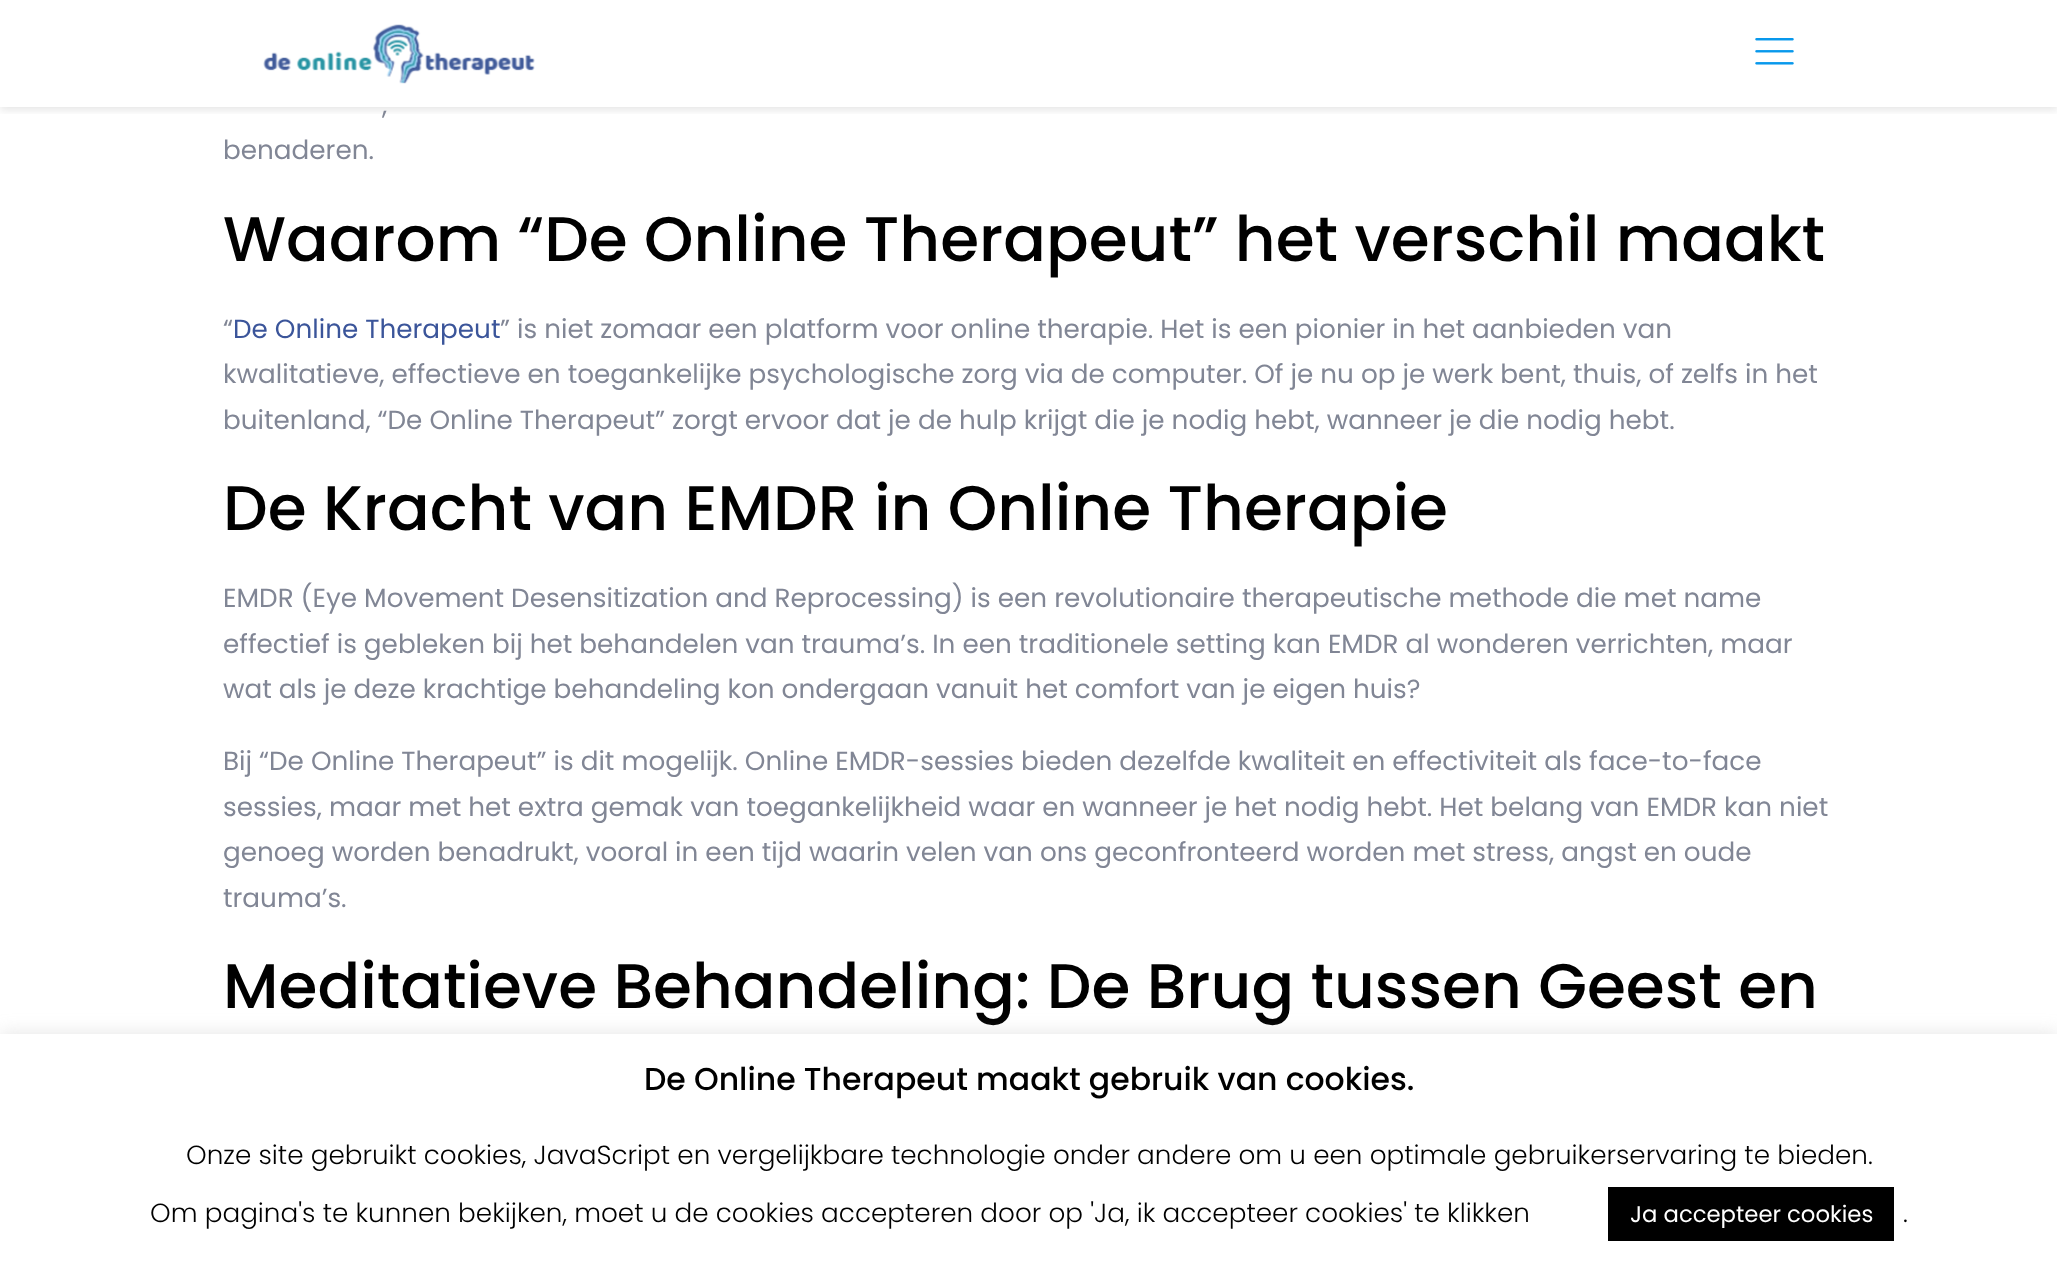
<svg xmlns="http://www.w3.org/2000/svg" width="2057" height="1269">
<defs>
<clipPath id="clip1"><rect x="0" y="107" width="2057" height="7"/></clipPath>
</defs>
<rect width="100%" height="100%" fill="#fff"/>
<g clip-path="url(#clip1)">
<rect y="4" width="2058" height="106" fill="#0000001a" filter="blur(4.5px)"/>
</g>
<rect y="106" width="2057" height="1" fill="#fffffff7"/>
<image x="263" y="24" width="272" height="60" href="media/1.png"/>
<image x="1755" y="38" width="39" height="27" href="media/2.png"/>
<text x="382" y="114" style="font-family:Poppins;font-size:26.25px;fill:#818695">,</text>
<text x="223" y="159" style="font-family:Poppins;font-size:26.25px;fill:#818695">benaderen.</text>
<text x="223" y="261" style="font-family:Poppins;font-size:63px;font-weight:500;fill:#000">Waarom “De Online Therapeut” het verschil maakt</text>
<text x="223" y="338" style="font-family:Poppins;font-size:26.25px;fill:#818695">“</text>
<text x="233" y="338" style="font-family:Poppins;font-size:26.25px;fill:#3b559a">De Online Therapeut</text>
<text x="500" y="338" style="font-family:Poppins;font-size:26.25px;fill:#818695">” is niet zomaar een platform voor online therapie. Het is een pionier in het aanbieden van</text>
<text x="223" y="383" style="font-family:Poppins;font-size:26.25px;fill:#818695">kwalitatieve, effectieve en toegankelijke psychologische zorg via de computer. Of je nu op je werk bent, thuis, of zelfs in het</text>
<text x="223" y="429" style="font-family:Poppins;font-size:26.25px;fill:#818695">buitenland, “De Online Therapeut” zorgt ervoor dat je de hulp krijgt die je nodig hebt, wanneer je die nodig hebt.</text>
<text x="223" y="530" style="font-family:Poppins;font-size:63px;font-weight:500;fill:#000">De Kracht van EMDR in Online Therapie</text>
<text x="223" y="607" style="font-family:Poppins;font-size:26.25px;fill:#818695">EMDR (Eye Movement Desensitization and Reprocessing) is een revolutionaire therapeutische methode die met name</text>
<text x="223" y="653" style="font-family:Poppins;font-size:26.25px;fill:#818695">effectief is gebleken bij het behandelen van trauma’s. In een traditionele setting kan EMDR al wonderen verrichten, maar</text>
<text x="223" y="698" style="font-family:Poppins;font-size:26.25px;fill:#818695">wat als je deze krachtige behandeling kon ondergaan vanuit het comfort van je eigen huis?</text>
<text x="223" y="770" style="font-family:Poppins;font-size:26.25px;fill:#818695">Bij “De Online Therapeut” is dit mogelijk. Online EMDR-sessies bieden dezelfde kwaliteit en effectiviteit als face-to-face</text>
<text x="223" y="816" style="font-family:Poppins;font-size:26.25px;fill:#818695">sessies, maar met het extra gemak van toegankelijkheid waar en wanneer je het nodig hebt. Het belang van EMDR kan niet</text>
<text x="223" y="861" style="font-family:Poppins;font-size:26.25px;fill:#818695">genoeg worden benadrukt, vooral in een tijd waarin velen van ons geconfronteerd worden met stress, angst en oude</text>
<text x="223" y="907" style="font-family:Poppins;font-size:26.25px;fill:#818695">trauma’s.</text>
<text x="223" y="1008" style="font-family:Poppins;font-size:63px;font-weight:500;fill:#000">Meditatieve Behandeling: De Brug tussen Geest en</text>
<rect y="1033" width="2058" height="236" fill="#acabab4d" filter="blur(9px)"/>
<rect y="1034" width="2057" height="235" fill="#fff"/>
<text x="644" y="1090" style="font-family:Poppins;font-size:31.5px;font-weight:500;fill:#000">De Online Therapeut maakt gebruik van cookies.</text>
<text x="186" y="1164" style="font-family:Poppins;font-size:26.25px;font-weight:300;fill:#000">Onze site gebruikt cookies, JavaScript en vergelijkbare technologie onder andere om u een optimale gebruikerservaring te bieden.</text>
<text x="150" y="1222" style="font-family:Poppins;font-size:26.25px;font-weight:300;fill:#000">Om pagina's te kunnen bekijken, moet u de cookies accepteren door op 'Ja, ik accepteer cookies' te klikken</text>
<rect x="1608" y="1187" width="286" height="54" fill="#000"/>
<text x="1630" y="1222" style="font-family:Poppins;font-size:22.75px;fill:#fff">Ja accepteer cookies</text>
<text x="1903" y="1222" style="font-family:Poppins;font-size:26.25px;font-weight:300;fill:#000">.</text>
</svg>
